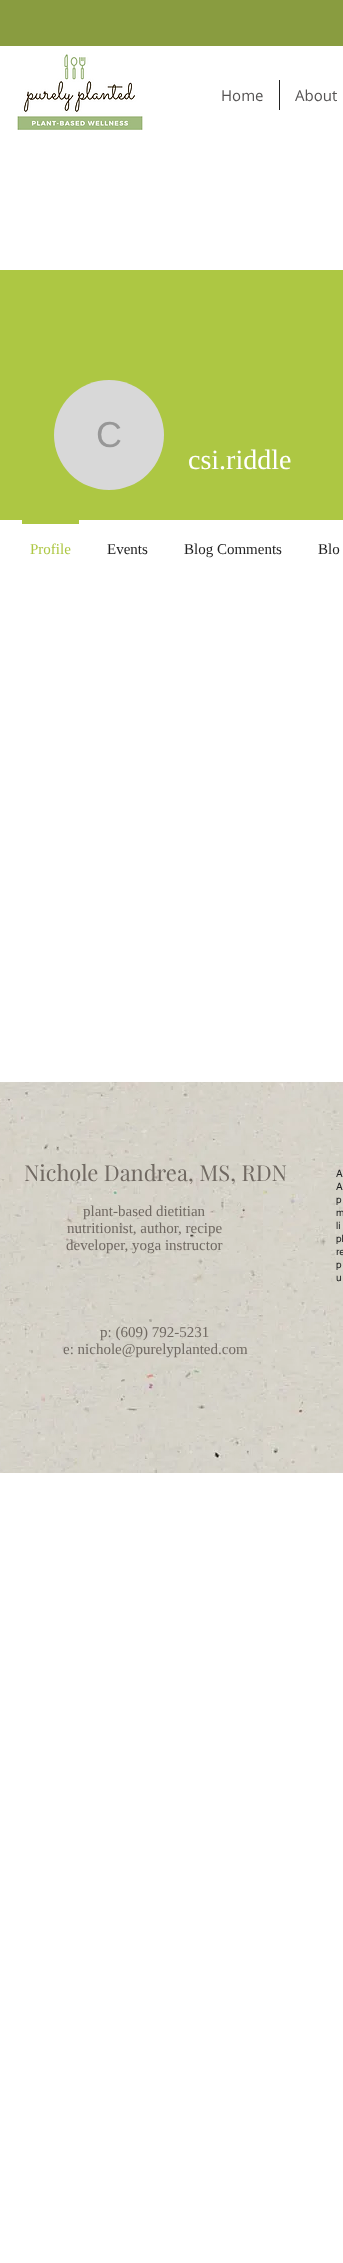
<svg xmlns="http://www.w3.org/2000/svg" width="343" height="2263">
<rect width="100%" height="100%" fill="#fff"/>
<rect width="343" height="46" fill="#899c40"/>
<image x="17" y="54" width="126" height="76" href="media/1.png"/>
<text x="221" y="101" style="font-family:Open Sans;font-size:15px;fill:#555353">Home</text>
<rect x="279" y="80" width="1" height="30" fill="#222"/>
<text x="295" y="101" style="font-family:Open Sans;font-size:15px;fill:#555353">About</text>
<rect y="270" width="343" height="250" fill="#adc743"/>
<circle cx="109" cy="435" r="55" fill="#d8d8d8"/>
<text x="96" y="447" style="font-family:Liberation Sans;font-size:36px;fill:#979797">C</text>
<text x="188" y="469" style="font-family:Liberation Serif;font-size:28px;fill:#fff">csi.riddle</text>
<rect x="22" y="520" width="57" height="4" fill="#adc743"/>
<text x="30" y="554" style="font-family:Liberation Serif;font-size:15px;fill:#adc743">Profile</text>
<text x="107" y="554" style="font-family:Liberation Serif;font-size:15px;fill:#222">Events</text>
<text x="184" y="554" style="font-family:Liberation Serif;font-size:15px;fill:#222">Blog Comments</text>
<text x="318" y="554" style="font-family:Liberation Serif;font-size:15px;fill:#222">Blo</text>
<image x="0" y="1082" width="343" height="391" href="media/2.png"/>
<text x="24" y="1181" style="font-family:Playfair Display;font-size:22px;fill:#706962">Nichole Dandrea, MS, RDN</text>
<text x="336" y="1177" style="font-family:helvetica;font-size:10px;fill:#222">A</text>
<text x="336" y="1190" style="font-family:helvetica;font-size:10px;fill:#222">A</text>
<text x="336" y="1203" style="font-family:helvetica;font-size:10px;fill:#222">p</text>
<text x="336" y="1216" style="font-family:helvetica;font-size:10px;fill:#222">m</text>
<text x="336" y="1229" style="font-family:helvetica;font-size:10px;fill:#222">li</text>
<text x="336" y="1242" style="font-family:helvetica;font-size:10px;fill:#222">pl</text>
<text x="336" y="1255" style="font-family:helvetica;font-size:10px;fill:#222">re</text>
<text x="336" y="1268" style="font-family:helvetica;font-size:10px;fill:#222">p</text>
<text x="336" y="1281" style="font-family:helvetica;font-size:10px;fill:#222">u</text>
<text x="83" y="1216" style="font-family:Liberation Serif;font-size:15px;fill:#706962">plant-based dietitian</text>
<text x="67" y="1233" style="font-family:Liberation Serif;font-size:15px;fill:#706962">nutritionist, author, recipe</text>
<text x="66" y="1250" style="font-family:Liberation Serif;font-size:15px;fill:#706962">developer, yoga instructor</text>
<text x="100" y="1337" style="font-family:Liberation Serif;font-size:15px;fill:#706962">p: (609) 792-5231</text>
<text x="63" y="1354" style="font-family:Liberation Serif;font-size:15px;fill:#706962">e: nichole@purelyplanted.com</text>
</svg>
